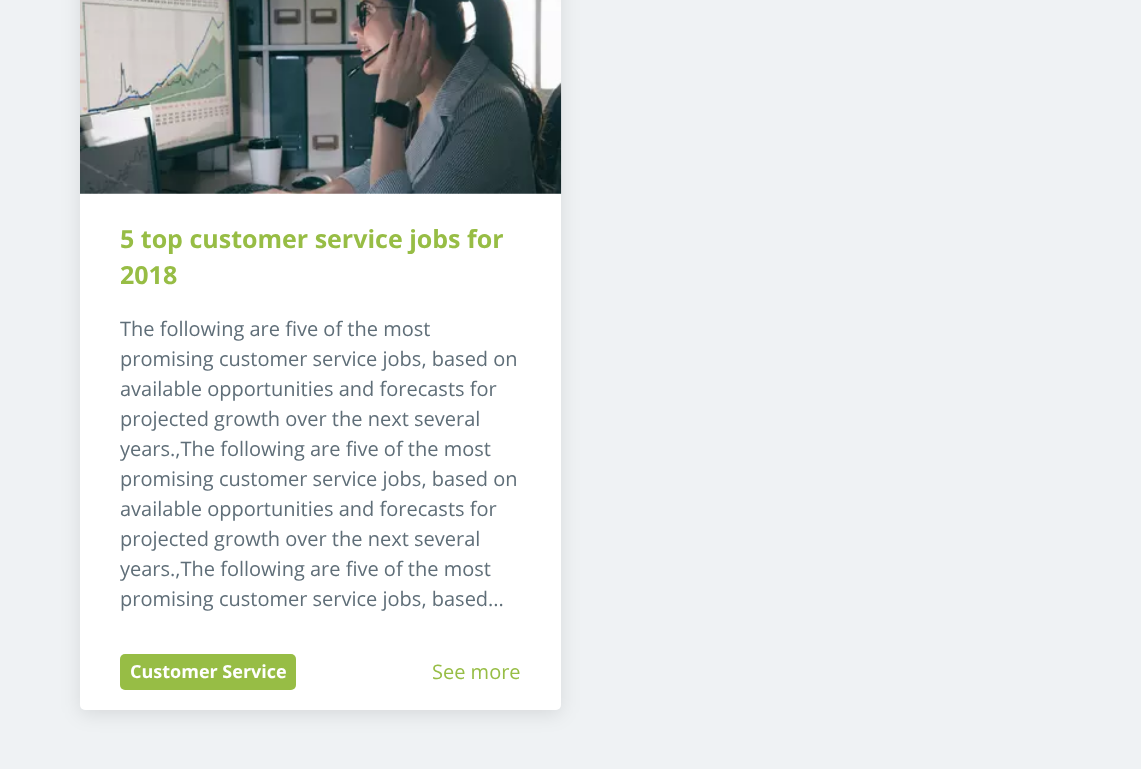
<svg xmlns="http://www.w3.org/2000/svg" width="1141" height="769">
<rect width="100%" height="100%" fill="#eff2f4"/>
<rect x="80" y="-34" width="481" height="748" rx="5" fill="#0000001a" filter="blur(9.5px)"/>
<rect x="80" y="-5" width="481" height="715" rx="5" fill="#fff"/>
<image x="80" y="0" width="482" height="194" href="media/1.png"/>
<text x="120" y="248" style="font-family:Open Sans;font-size:25px;font-weight:bold;fill:#97bd45">5 top customer service jobs for</text>
<text x="120" y="284" style="font-family:Open Sans;font-size:25px;font-weight:bold;fill:#97bd45">2018</text>
<text x="120" y="336" style="font-family:Open Sans;font-size:20px;fill:#5f6e78">The following are five of the most</text>
<text x="120" y="366" style="font-family:Open Sans;font-size:20px;fill:#5f6e78">promising customer service jobs, based on</text>
<text x="120" y="396" style="font-family:Open Sans;font-size:20px;fill:#5f6e78">available opportunities and forecasts for</text>
<text x="120" y="426" style="font-family:Open Sans;font-size:20px;fill:#5f6e78">projected growth over the next several</text>
<text x="120" y="456" style="font-family:Open Sans;font-size:20px;fill:#5f6e78">years.,The following are five of the most</text>
<text x="120" y="486" style="font-family:Open Sans;font-size:20px;fill:#5f6e78">promising customer service jobs, based on</text>
<text x="120" y="516" style="font-family:Open Sans;font-size:20px;fill:#5f6e78">available opportunities and forecasts for</text>
<text x="120" y="546" style="font-family:Open Sans;font-size:20px;fill:#5f6e78">projected growth over the next several</text>
<text x="120" y="576" style="font-family:Open Sans;font-size:20px;fill:#5f6e78">years.,The following are five of the most</text>
<text x="120" y="606" style="font-family:Open Sans;font-size:20px;fill:#5f6e78">promising customer service jobs, based...</text>
<rect x="120" y="654" width="176" height="36" rx="5" fill="#97bd45"/>
<text x="130" y="678" style="font-family:Open Sans;font-size:18px;font-weight:bold;fill:#fff">Customer Service</text>
<text x="432" y="679" style="font-family:Open Sans;font-size:20px;fill:#97bd45">See more</text>
</svg>
